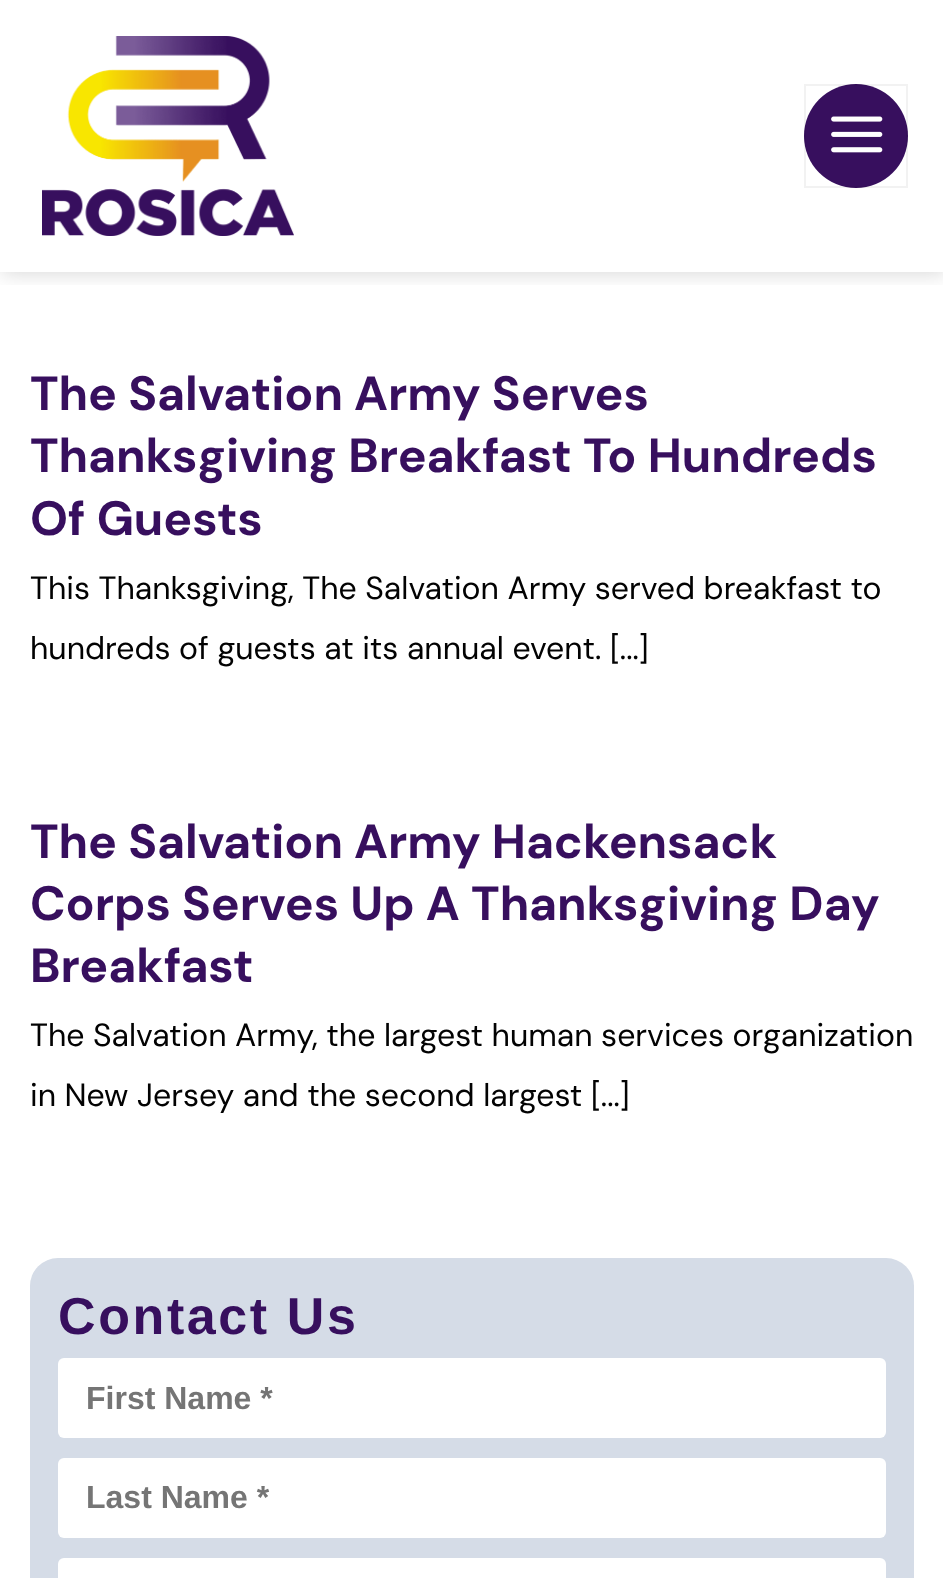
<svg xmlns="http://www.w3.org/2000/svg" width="943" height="1578">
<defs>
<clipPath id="clip1"><rect x="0" y="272" width="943" height="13"/></clipPath>
</defs>
<rect width="100%" height="100%" fill="#fff"/>
<g clip-path="url(#clip1)">
<rect x="2" y="2" width="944" height="272" fill="#00000026" filter="blur(10px)"/>
</g>
<image x="42" y="36" width="252" height="200" href="media/1.png"/>
<circle cx="856" cy="136" r="52" fill="#370f5e"/>
<rect x="805" y="85" width="102" height="102" fill="none" stroke="#0000000d" stroke-width="2"/>
<image x="831" y="116" width="52" height="37" href="media/2.png"/>
<text x="30" y="410" style="font-family:DM Sans;font-size:48px;font-weight:bold;fill:#370f5e">The Salvation Army Serves</text>
<text x="30" y="472" style="font-family:DM Sans;font-size:48px;font-weight:bold;fill:#370f5e">Thanksgiving Breakfast To Hundreds</text>
<text x="30" y="535" style="font-family:DM Sans;font-size:48px;font-weight:bold;fill:#370f5e">Of Guests</text>
<text x="30" y="599" style="font-family:DM Sans;font-size:32px;fill:#020202">This Thanksgiving, The Salvation Army served breakfast to</text>
<text x="30" y="659" style="font-family:DM Sans;font-size:32px;fill:#020202">hundreds of guests at its annual event. [...]</text>
<text x="30" y="858" style="font-family:DM Sans;font-size:48px;font-weight:bold;fill:#370f5e">The Salvation Army Hackensack</text>
<text x="30" y="920" style="font-family:DM Sans;font-size:48px;font-weight:bold;fill:#370f5e">Corps Serves Up A Thanksgiving Day</text>
<text x="30" y="982" style="font-family:DM Sans;font-size:48px;font-weight:bold;fill:#370f5e">Breakfast</text>
<text x="30" y="1046" style="font-family:DM Sans;font-size:32px;fill:#020202">The Salvation Army, the largest human services organization</text>
<text x="30" y="1106" style="font-family:DM Sans;font-size:32px;fill:#020202">in New Jersey and the second largest [...]</text>
<rect x="30" y="1258" width="884" height="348" rx="28" fill="#d5dce7"/>
<text x="58" y="1334" style="font-family:Liberation Sans;font-size:52px;font-weight:bold;letter-spacing:2.6px;fill:#370f5e">Contact Us</text>
<rect x="58" y="1358" width="828" height="80" rx="6" fill="#fff"/>
<text x="86" y="1409" style="font-family:Liberation Sans;font-size:32px;font-weight:bold;fill:#757575">First Name *</text>
<rect x="58" y="1458" width="828" height="80" rx="6" fill="#fff"/>
<text x="86" y="1508" style="font-family:Liberation Sans;font-size:32px;font-weight:bold;fill:#757575">Last Name *</text>
<rect x="58" y="1558" width="828" height="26" rx="6" fill="#fff"/>
</svg>
